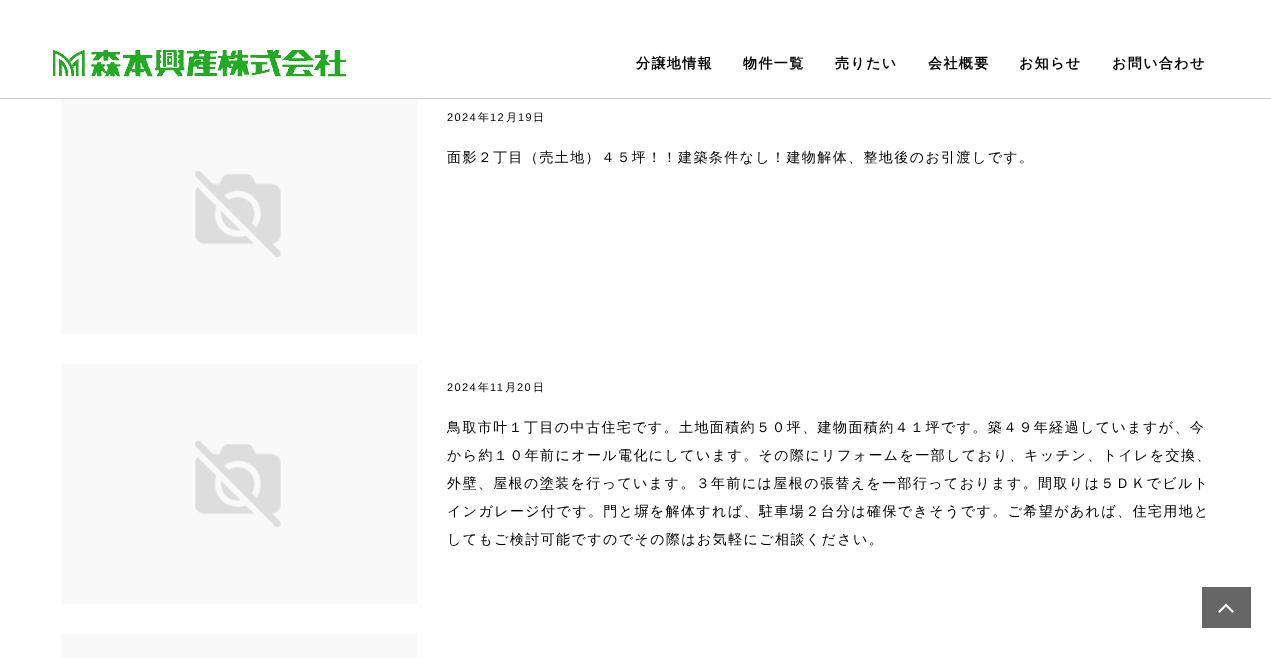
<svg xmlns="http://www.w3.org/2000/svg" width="1271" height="658">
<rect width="100%" height="100%" fill="#fff"/>
<image x="53" y="50" width="293" height="27" href="media/1.png"/>
<text x="636" y="68" style="font-family:WenQuanYi Zen Hei;font-size:14px;font-weight:bold;letter-spacing:1.4px;fill:#000">分譲地情報</text>
<text x="743" y="68" style="font-family:WenQuanYi Zen Hei;font-size:14px;font-weight:bold;letter-spacing:1.4px;fill:#000">物件一覧</text>
<text x="835" y="68" style="font-family:WenQuanYi Zen Hei;font-size:14px;font-weight:bold;letter-spacing:1.4px;fill:#000">売りたい</text>
<text x="928" y="68" style="font-family:WenQuanYi Zen Hei;font-size:14px;font-weight:bold;letter-spacing:1.4px;fill:#000">会社概要</text>
<text x="1019" y="68" style="font-family:WenQuanYi Zen Hei;font-size:14px;font-weight:bold;letter-spacing:1.4px;fill:#000">お知らせ</text>
<text x="1112" y="68" style="font-family:WenQuanYi Zen Hei;font-size:14px;font-weight:bold;letter-spacing:1.4px;fill:#000">お問い合わせ</text>
<rect y="98" width="1271" height="1" fill="#ccc"/>
<image x="61" y="99" width="356" height="235" href="media/2.png"/>
<text x="447" y="121" style="font-family:Liberation Sans;font-size:11px;letter-spacing:1.4px;fill:#000">2024</text>
<text x="478" y="121" style="font-family:WenQuanYi Zen Hei;font-size:11px;font-weight:500;letter-spacing:1.4px;fill:#000">年</text>
<text x="490" y="121" style="font-family:Liberation Sans;font-size:11px;letter-spacing:1.4px;fill:#000">12</text>
<text x="506" y="121" style="font-family:WenQuanYi Zen Hei;font-size:11px;font-weight:500;letter-spacing:1.4px;fill:#000">月</text>
<text x="518" y="121" style="font-family:Liberation Sans;font-size:11px;letter-spacing:1.4px;fill:#000">19</text>
<text x="533" y="121" style="font-family:WenQuanYi Zen Hei;font-size:11px;font-weight:500;letter-spacing:1.4px;fill:#000">日</text>
<text x="447" y="162" style="font-family:WenQuanYi Zen Hei;font-size:14px;font-weight:500;letter-spacing:1.4px;fill:#000">面影２丁目（売土地）４５坪！！建築条件なし！建物解体、整地後のお引渡しです。</text>
<image x="61" y="364" width="356" height="240" href="media/3.png"/>
<text x="447" y="391" style="font-family:Liberation Sans;font-size:11px;letter-spacing:1.4px;fill:#000">2024</text>
<text x="478" y="391" style="font-family:WenQuanYi Zen Hei;font-size:11px;font-weight:500;letter-spacing:1.4px;fill:#000">年</text>
<text x="490" y="391" style="font-family:Liberation Sans;font-size:11px;letter-spacing:1.4px;fill:#000">11</text>
<text x="505" y="391" style="font-family:WenQuanYi Zen Hei;font-size:11px;font-weight:500;letter-spacing:1.4px;fill:#000">月</text>
<text x="517" y="391" style="font-family:Liberation Sans;font-size:11px;letter-spacing:1.4px;fill:#000">20</text>
<text x="533" y="391" style="font-family:WenQuanYi Zen Hei;font-size:11px;font-weight:500;letter-spacing:1.4px;fill:#000">日</text>
<text x="447" y="432" style="font-family:WenQuanYi Zen Hei;font-size:14px;font-weight:500;letter-spacing:1.4px;fill:#000">鳥取市叶１丁目の中古住宅です。土地面積約５０坪、建物面積約４１坪です。築４９年経過していますが、今</text>
<text x="447" y="460" style="font-family:WenQuanYi Zen Hei;font-size:14px;font-weight:500;letter-spacing:1.4px;fill:#000">から約１０年前にオール電化にしています。その際にリフォームを一部しており、キッチン、トイレを交換、</text>
<text x="447" y="488" style="font-family:WenQuanYi Zen Hei;font-size:14px;font-weight:500;letter-spacing:1.4px;fill:#000">外壁、屋根の塗装を行っています。３年前には屋根の張替えを一部行っております。間取りは５ＤＫでビルト</text>
<text x="447" y="516" style="font-family:WenQuanYi Zen Hei;font-size:14px;font-weight:500;letter-spacing:1.4px;fill:#000">インガレージ付です。門と塀を解体すれば、駐車場２台分は確保できそうです。ご希望があれば、住宅用地と</text>
<text x="447" y="544" style="font-family:WenQuanYi Zen Hei;font-size:14px;font-weight:500;letter-spacing:1.4px;fill:#000">してもご検討可能ですのでその際はお気軽にご相談ください。</text>
<rect x="61" y="634" width="356" height="24" fill="#f9f9f9"/>
<rect x="1202" y="587" width="49" height="41" fill="#666"/>
<image x="1218" y="603" width="16" height="10" href="media/4.png"/>
</svg>
